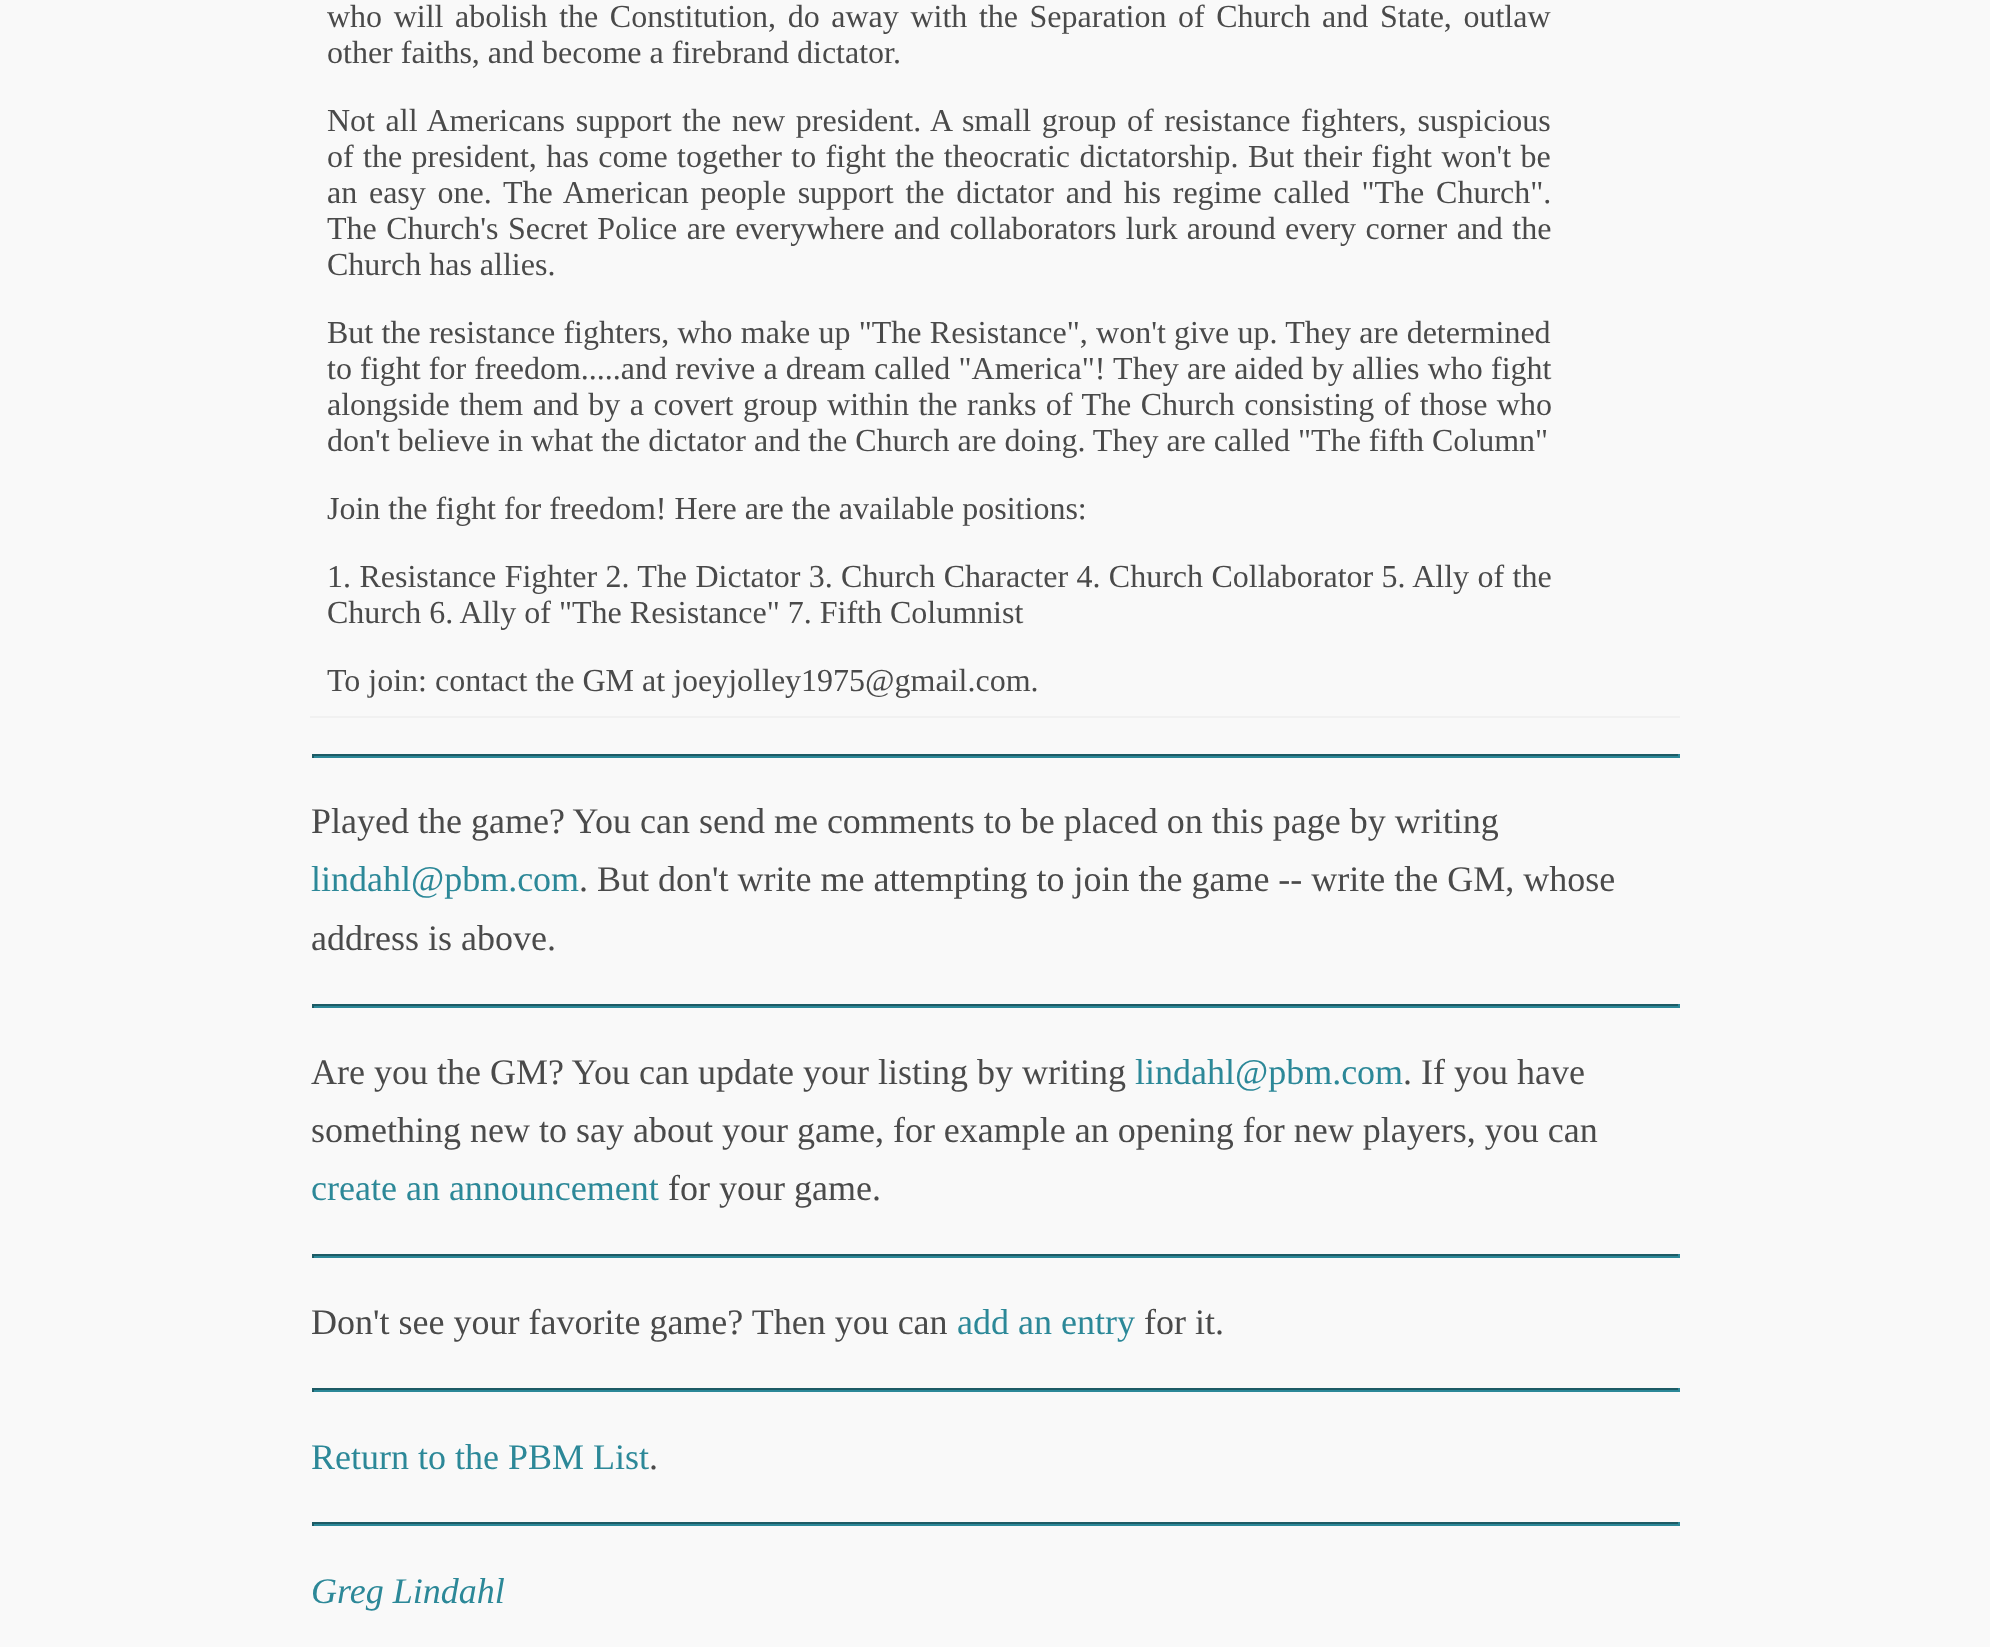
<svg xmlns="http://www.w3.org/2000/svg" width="1990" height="1647">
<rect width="100%" height="100%" fill="#f9f9f9"/>
<text x="327" y="27" word-spacing="3.6" style="font-family:Liberation Serif;font-size:32px;fill:#4a4a4a">who will abolish the Constitution, do away with the Separation of Church and State, outlaw</text>
<text x="327" y="63" style="font-family:Liberation Serif;font-size:32px;fill:#4a4a4a">other faiths, and become a firebrand dictator.</text>
<text x="327" y="131" word-spacing="2.6" style="font-family:Liberation Serif;font-size:32px;fill:#4a4a4a">Not all Americans support the new president. A small group of resistance fighters, suspicious</text>
<text x="327" y="167" word-spacing="1.4" style="font-family:Liberation Serif;font-size:32px;fill:#4a4a4a">of the president, has come together to fight the theocratic dictatorship. But their fight won't be</text>
<text x="327" y="203" word-spacing="3.75" style="font-family:Liberation Serif;font-size:32px;fill:#4a4a4a">an easy one. The American people support the dictator and his regime called "The Church".</text>
<text x="327" y="239" word-spacing="1.4" style="font-family:Liberation Serif;font-size:32px;fill:#4a4a4a">The Church's Secret Police are everywhere and collaborators lurk around every corner and the</text>
<text x="327" y="275" style="font-family:Liberation Serif;font-size:32px;fill:#4a4a4a">Church has allies.</text>
<text x="327" y="343" word-spacing="0.3" style="font-family:Liberation Serif;font-size:32px;fill:#4a4a4a">But the resistance fighters, who make up "The Resistance", won't give up. They are determined</text>
<text x="327" y="379" word-spacing="0.2" style="font-family:Liberation Serif;font-size:32px;fill:#4a4a4a">to fight for freedom.....and revive a dream called "America"! They are aided by allies who fight</text>
<text x="327" y="415" word-spacing="1.5" style="font-family:Liberation Serif;font-size:32px;fill:#4a4a4a">alongside them and by a covert group within the ranks of The Church consisting of those who</text>
<text x="327" y="451" style="font-family:Liberation Serif;font-size:32px;fill:#4a4a4a">don't believe in what the dictator and the Church are doing. They are called "The fifth Column"</text>
<text x="327" y="519" style="font-family:Liberation Serif;font-size:32px;fill:#4a4a4a">Join the fight for freedom! Here are the available positions:</text>
<text x="327" y="587" word-spacing="0.4" style="font-family:Liberation Serif;font-size:32px;fill:#4a4a4a">1. Resistance Fighter 2. The Dictator 3. Church Character 4. Church Collaborator 5. Ally of the</text>
<text x="327" y="623" style="font-family:Liberation Serif;font-size:32px;fill:#4a4a4a">Church 6. Ally of "The Resistance" 7. Fifth Columnist</text>
<text x="327" y="691" style="font-family:Liberation Serif;font-size:32px;fill:#4a4a4a">To join: contact the GM at joeyjolley1975@gmail.com.</text>
<rect x="310" y="716" width="1370" height="2" fill="#f1f1f1"/>
<rect x="312" y="754" width="1368" height="2" fill="#1d5b65"/>
<rect x="1678" y="754" width="2" height="4" fill="#2c8898"/>
<rect x="312" y="756" width="1368" height="2" fill="#2c8898"/>
<rect x="312" y="754" width="2" height="4" fill="#1d5b65"/>
<text x="311" y="833" style="font-family:Liberation Serif;font-size:36px;fill:#4a4a4a">Played the game? You can send me comments to be placed on this page by writing</text>
<text x="311" y="891" style="font-family:Liberation Serif;font-size:36px;fill:#2c8898">lindahl@pbm.com</text>
<text x="579" y="891" style="font-family:Liberation Serif;font-size:36px;fill:#4a4a4a">. But don't write me attempting to join the game -- write the GM, whose</text>
<text x="311" y="950" style="font-family:Liberation Serif;font-size:36px;fill:#4a4a4a">address is above.</text>
<rect x="312" y="1004" width="1368" height="2" fill="#1d5b65"/>
<rect x="1678" y="1004" width="2" height="4" fill="#2c8898"/>
<rect x="312" y="1006" width="1368" height="2" fill="#2c8898"/>
<rect x="312" y="1004" width="2" height="4" fill="#1d5b65"/>
<text x="311" y="1084" style="font-family:Liberation Serif;font-size:36px;fill:#4a4a4a">Are you the GM? You can update your listing by writing</text>
<text x="1135" y="1084" style="font-family:Liberation Serif;font-size:36px;fill:#2c8898">lindahl@pbm.com</text>
<text x="1403" y="1084" style="font-family:Liberation Serif;font-size:36px;fill:#4a4a4a">. If you have</text>
<text x="311" y="1142" style="font-family:Liberation Serif;font-size:36px;fill:#4a4a4a">something new to say about your game, for example an opening for new players, you can</text>
<text x="311" y="1200" style="font-family:Liberation Serif;font-size:36px;fill:#2c8898">create an announcement</text>
<text x="668" y="1200" style="font-family:Liberation Serif;font-size:36px;fill:#4a4a4a">for your game.</text>
<rect x="312" y="1254" width="1368" height="2" fill="#1d5b65"/>
<rect x="1678" y="1254" width="2" height="4" fill="#2c8898"/>
<rect x="312" y="1256" width="1368" height="2" fill="#2c8898"/>
<rect x="312" y="1254" width="2" height="4" fill="#1d5b65"/>
<text x="311" y="1334" style="font-family:Liberation Serif;font-size:36px;fill:#4a4a4a">Don't see your favorite game? Then you can</text>
<text x="957" y="1334" style="font-family:Liberation Serif;font-size:36px;fill:#2c8898">add an entry</text>
<text x="1144" y="1334" style="font-family:Liberation Serif;font-size:36px;fill:#4a4a4a">for it.</text>
<rect x="312" y="1388" width="1368" height="2" fill="#1d5b65"/>
<rect x="1678" y="1388" width="2" height="4" fill="#2c8898"/>
<rect x="312" y="1390" width="1368" height="2" fill="#2c8898"/>
<rect x="312" y="1388" width="2" height="4" fill="#1d5b65"/>
<text x="311" y="1469" style="font-family:Liberation Serif;font-size:36px;fill:#2c8898">Return to the PBM List</text>
<text x="649" y="1469" style="font-family:Liberation Serif;font-size:36px;fill:#4a4a4a">.</text>
<rect x="312" y="1522" width="1368" height="2" fill="#1d5b65"/>
<rect x="1678" y="1522" width="2" height="4" fill="#2c8898"/>
<rect x="312" y="1524" width="1368" height="2" fill="#2c8898"/>
<rect x="312" y="1522" width="2" height="4" fill="#1d5b65"/>
<text x="311" y="1603" style="font-family:Liberation Serif;font-size:36px;font-style:italic;fill:#2c8898">Greg Lindahl</text>
</svg>
